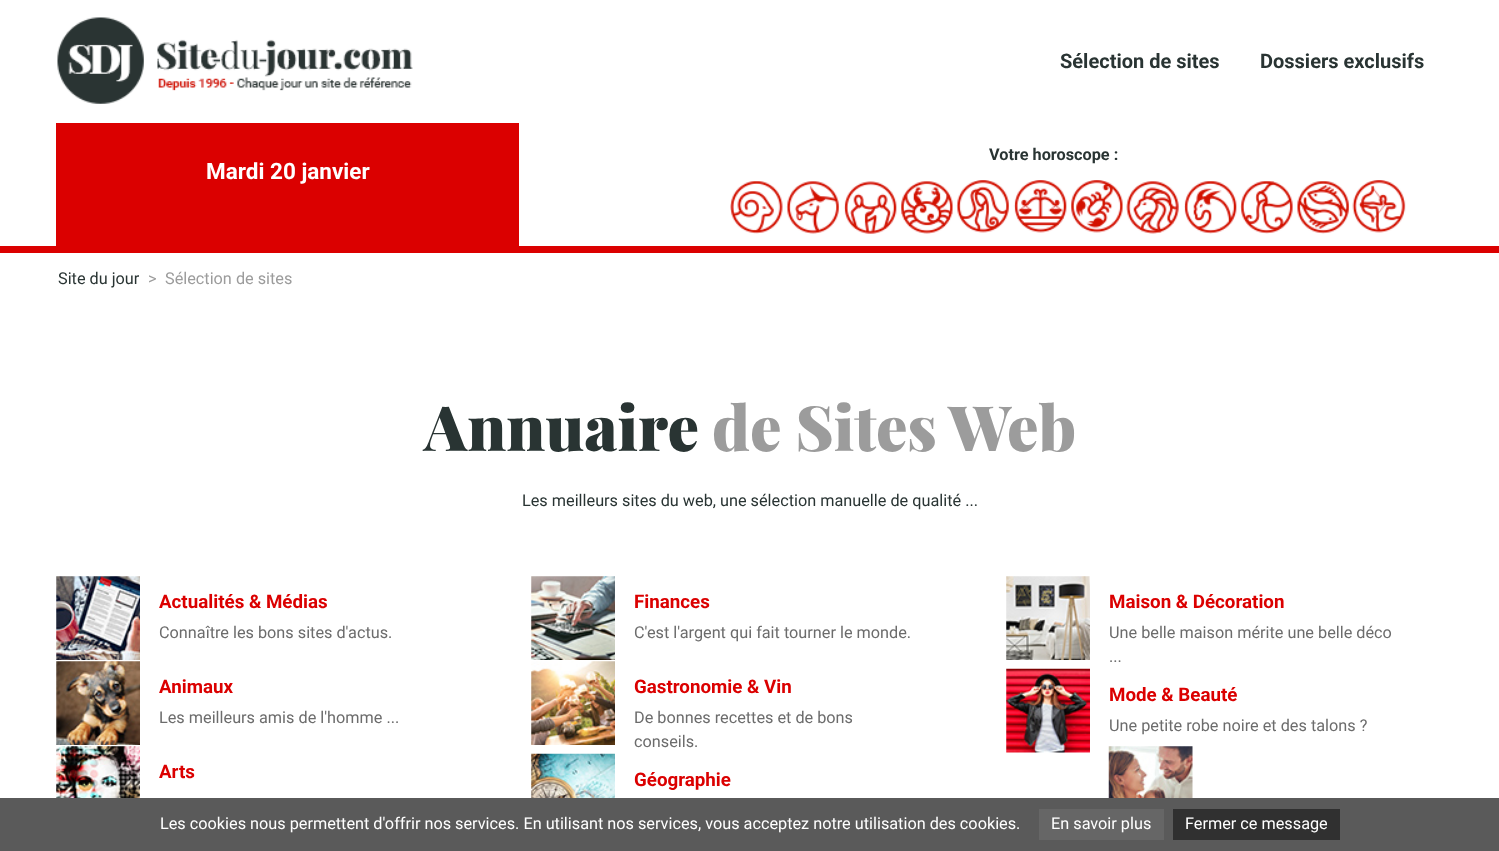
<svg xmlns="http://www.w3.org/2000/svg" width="1499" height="851">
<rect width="100%" height="100%" fill="#fff"/>
<rect y="246" width="1499" height="7" fill="#db0000"/>
<image x="57" y="17" width="356" height="87" href="media/1.png"/>
<text x="1060" y="68" style="font-family:Roboto;font-size:20px;font-weight:bold;fill:#293433">Sélection de sites</text>
<text x="1260" y="68" style="font-family:Roboto;font-size:20px;font-weight:bold;fill:#293433">Dossiers exclusifs</text>
<text x="989" y="160" style="font-family:Roboto;font-size:16.25px;font-weight:bold;fill:#293433">Votre horoscope :</text>
<image x="730" y="181" width="53" height="53" href="media/2.png"/>
<image x="786" y="181" width="53" height="53" href="media/3.png"/>
<image x="843" y="181" width="54" height="53" href="media/4.png"/>
<image x="901" y="181" width="52" height="53" href="media/5.png"/>
<image x="956" y="180" width="53" height="53" href="media/6.png"/>
<image x="1013" y="180" width="54" height="53" href="media/7.png"/>
<image x="1071" y="180" width="52" height="53" href="media/8.png"/>
<image x="1126" y="181" width="53" height="53" href="media/9.png"/>
<image x="1184" y="181" width="53" height="53" href="media/10.png"/>
<image x="1240" y="181" width="53" height="53" href="media/11.png"/>
<image x="1297" y="181" width="52" height="53" href="media/12.png"/>
<image x="1352" y="180" width="54" height="53" href="media/13.png"/>
<rect x="56" y="123" width="463" height="123" fill="#db0000"/>
<text x="206" y="179" style="font-family:Roboto;font-size:22.5px;font-weight:bold;fill:#fff">Mardi 20 janvier</text>
<text x="58" y="284" style="font-family:Roboto;font-size:16.25px;fill:#293433">Site du jour</text>
<text x="148" y="284" style="font-family:Roboto;font-size:16.25px;fill:#9c9c9c">&gt;</text>
<text x="165" y="284" style="font-family:Roboto;font-size:16.25px;fill:#9c9c9c">Sélection de sites</text>
<text x="424" y="451" style="font-family:Playfair Display;font-size:62.5px;font-weight:900;fill:#293433">Annuaire</text>
<text x="712" y="451" style="font-family:Playfair Display;font-size:62.5px;font-weight:900;fill:#9c9c9c">de Sites Web</text>
<text x="522" y="506" style="font-family:Roboto;font-size:16.25px;fill:#293433">Les meilleurs sites du web, une sélection manuelle de qualité ...</text>
<image x="56" y="576" width="84" height="84" href="media/14.png"/>
<text x="159" y="608" style="font-family:Roboto;font-size:18.75px;font-weight:bold;fill:#db0000">Actualités &amp; Médias</text>
<text x="159" y="638" style="font-family:Roboto;font-size:16.25px;fill:#6c6c6c">Connaître les bons sites d'actus.</text>
<image x="56" y="661" width="84" height="84" href="media/15.png"/>
<text x="159" y="693" style="font-family:Roboto;font-size:18.75px;font-weight:bold;fill:#db0000">Animaux</text>
<text x="159" y="723" style="font-family:Roboto;font-size:16.25px;fill:#6c6c6c">Les meilleurs amis de l'homme ...</text>
<image x="56" y="746" width="84" height="52" href="media/16.png"/>
<text x="159" y="778" style="font-family:Roboto;font-size:18.75px;font-weight:bold;fill:#db0000">Arts</text>
<image x="531" y="576" width="84" height="84" href="media/17.png"/>
<text x="634" y="608" style="font-family:Roboto;font-size:18.75px;font-weight:bold;fill:#db0000">Finances</text>
<text x="634" y="638" style="font-family:Roboto;font-size:16.25px;fill:#6c6c6c">C'est l'argent qui fait tourner le monde.</text>
<image x="531" y="661" width="84" height="84" href="media/18.png"/>
<text x="634" y="693" style="font-family:Roboto;font-size:18.75px;font-weight:bold;fill:#db0000">Gastronomie &amp; Vin</text>
<text x="634" y="723" style="font-family:Roboto;font-size:16.25px;fill:#6c6c6c">De bonnes recettes et de bons</text>
<text x="634" y="747" style="font-family:Roboto;font-size:16.25px;fill:#6c6c6c">conseils.</text>
<image x="531" y="753" width="84" height="45" href="media/19.png"/>
<text x="634" y="786" style="font-family:Roboto;font-size:18.75px;font-weight:bold;fill:#db0000">Géographie</text>
<image x="1006" y="576" width="84" height="84" href="media/20.png"/>
<text x="1109" y="608" style="font-family:Roboto;font-size:18.75px;font-weight:bold;fill:#db0000">Maison &amp; Décoration</text>
<text x="1109" y="638" style="font-family:Roboto;font-size:16.25px;fill:#6c6c6c">Une belle maison mérite une belle déco</text>
<text x="1109" y="662" style="font-family:Roboto;font-size:16.25px;fill:#6c6c6c">...</text>
<image x="1006" y="668" width="84" height="85" href="media/21.png"/>
<text x="1109" y="701" style="font-family:Roboto;font-size:18.75px;font-weight:bold;fill:#db0000">Mode &amp; Beauté</text>
<text x="1109" y="731" style="font-family:Roboto;font-size:16.25px;fill:#6c6c6c">Une petite robe noire et des talons ?</text>
<image x="1108" y="746" width="85" height="52" href="media/22.png"/>
<rect y="798" width="1499" height="53" fill="#5a5a5a"/>
<text x="160" y="829" style="font-family:Roboto;font-size:16.25px;fill:#fff">Les cookies nous permettent d'offrir nos services. En utilisant nos services, vous acceptez notre utilisation des cookies.</text>
<rect x="1039" y="809" width="125" height="31" fill="#666"/>
<text x="1051" y="829" style="font-family:Roboto;font-size:16.25px;fill:#fff">En savoir plus</text>
<rect x="1173" y="809" width="167" height="31" fill="#303030"/>
<text x="1185" y="829" style="font-family:Roboto;font-size:16.25px;fill:#fff">Fermer ce message</text>
</svg>
